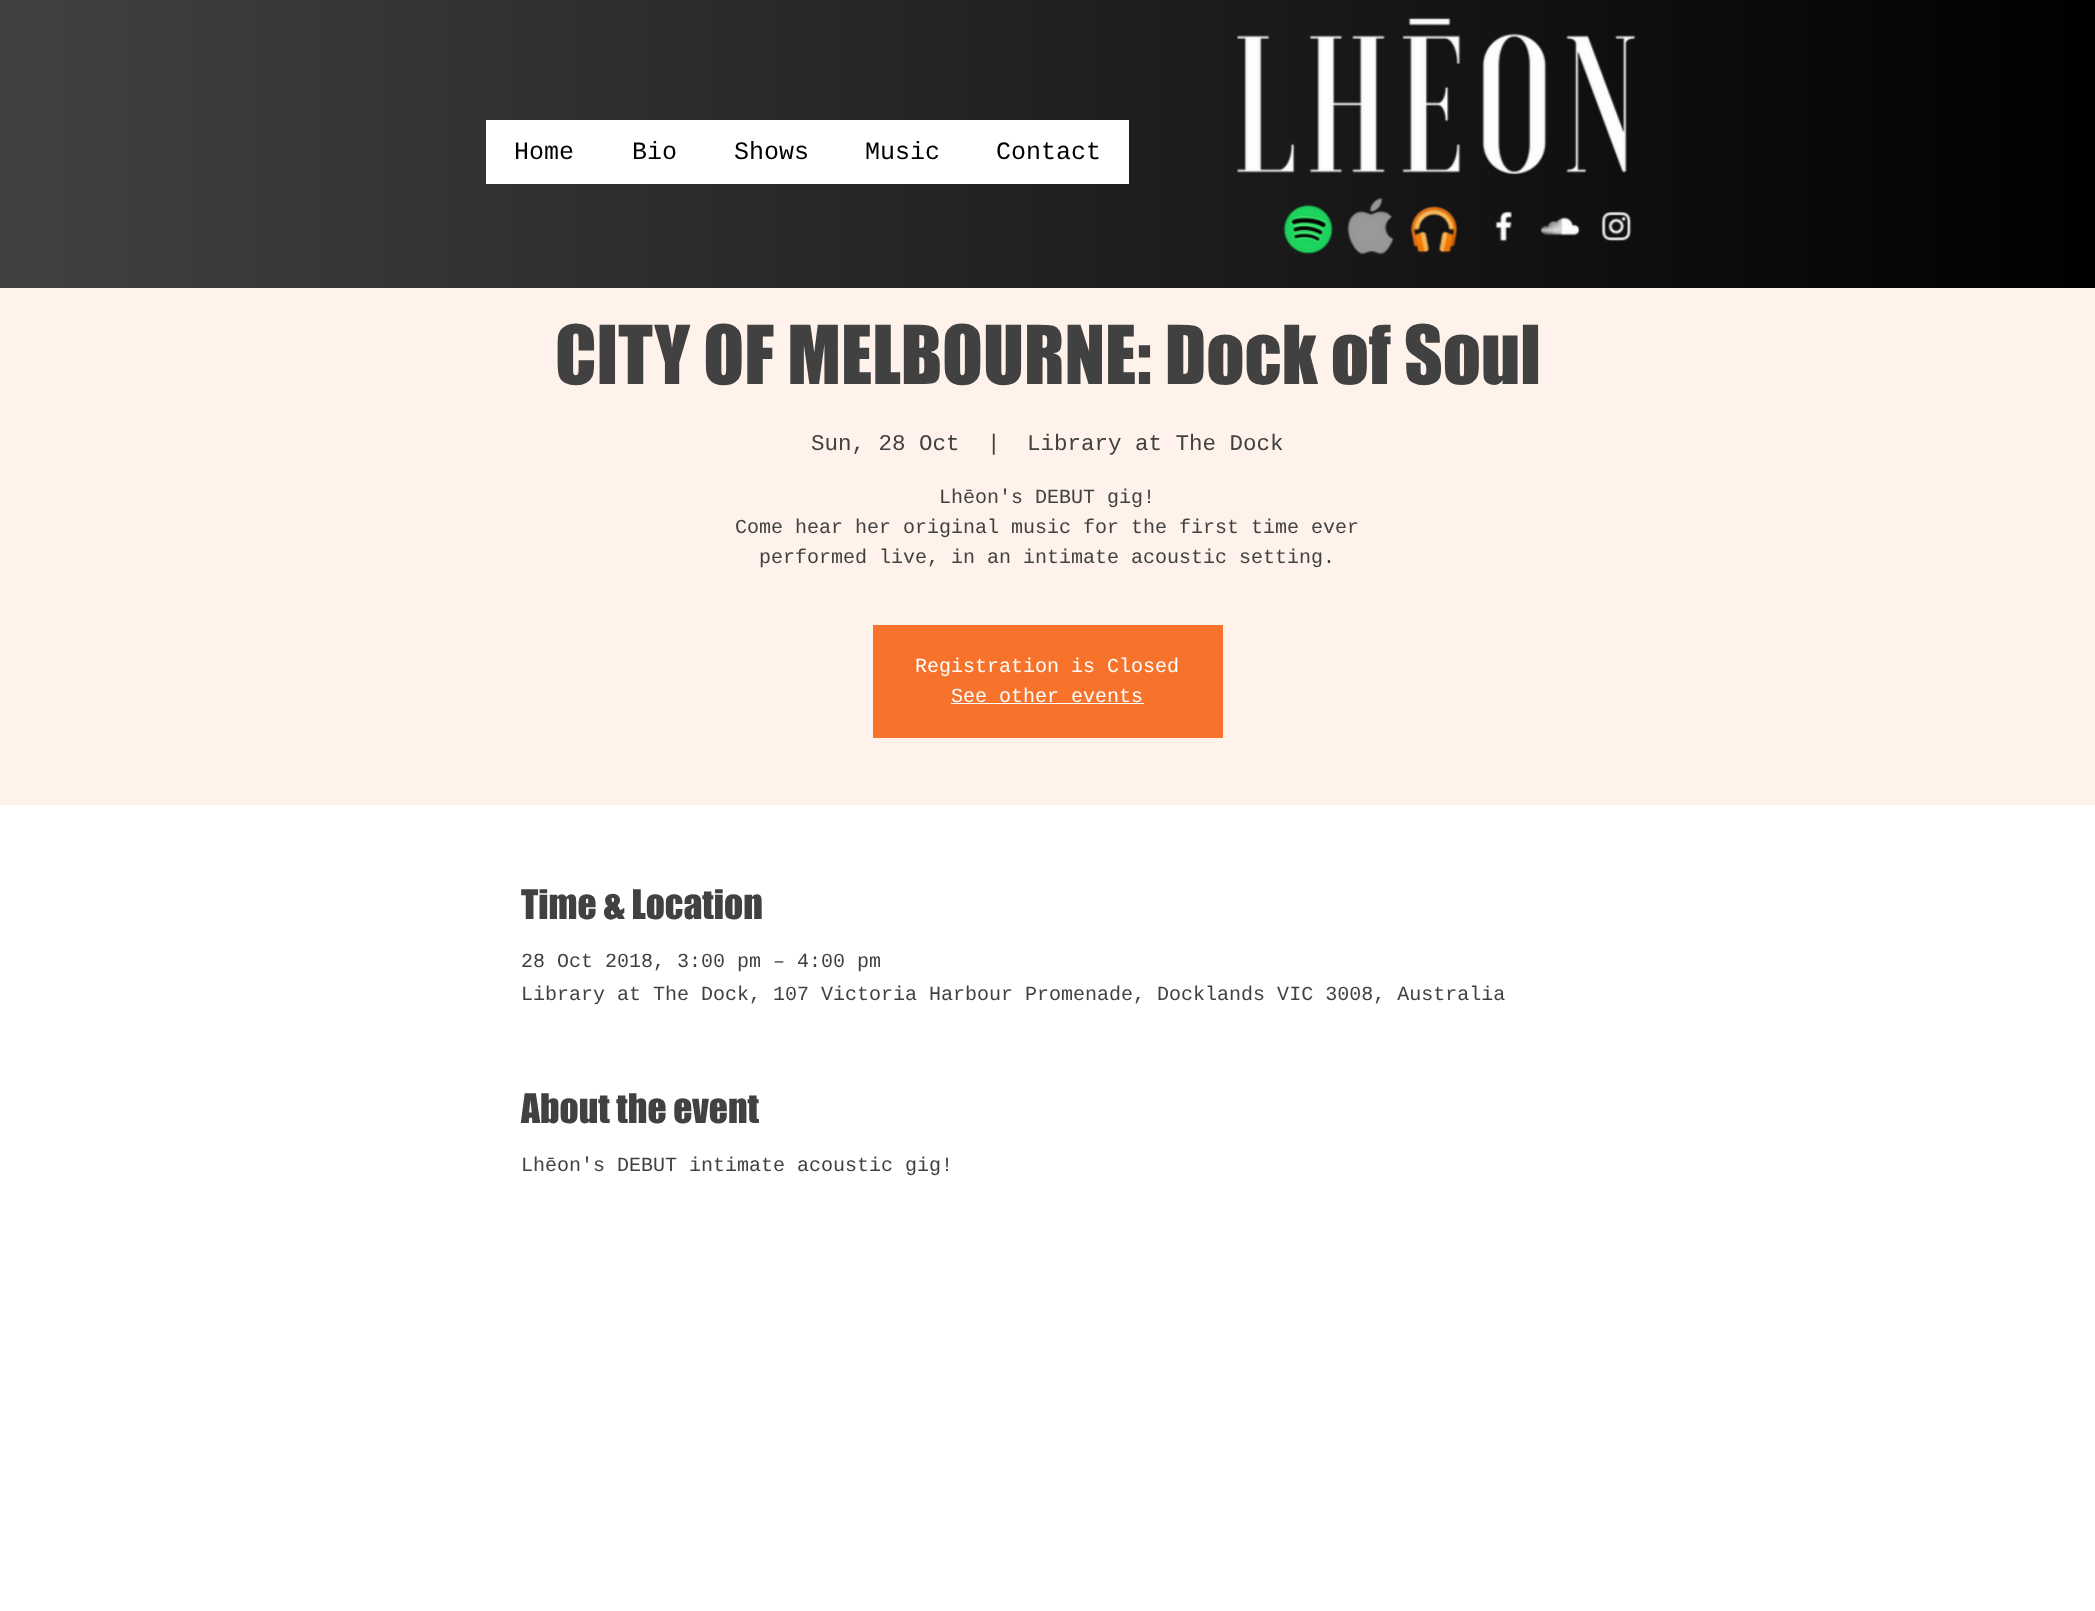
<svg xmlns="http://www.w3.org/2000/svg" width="2095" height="1611">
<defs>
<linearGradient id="g1" gradientUnits="userSpaceOnUse" x1="0" y1="144" x2="2095" y2="144"><stop offset="0" stop-color="#414141"/><stop offset="1" stop-color="#000"/></linearGradient>
</defs>
<rect width="100%" height="100%" fill="#fff"/>
<rect width="2095" height="288" fill="url(#g1)"/>
<rect x="486" y="120" width="643" height="64" fill="#fff"/>
<text x="514" y="159" style="font-family:Liberation Mono;font-size:25px;fill:#000">Home</text>
<text x="632" y="159" style="font-family:Liberation Mono;font-size:25px;fill:#000">Bio</text>
<text x="734" y="159" style="font-family:Liberation Mono;font-size:25px;fill:#000">Shows</text>
<text x="865" y="159" style="font-family:Liberation Mono;font-size:25px;fill:#000">Music</text>
<text x="996" y="159" style="font-family:Liberation Mono;font-size:25px;fill:#000">Contact</text>
<image x="1237" y="17" width="399" height="158" href="media/1.png"/>
<image x="1283" y="204" width="51" height="51" href="media/2.png"/>
<image x="1347" y="197" width="47" height="58" href="media/3.png"/>
<image x="1410" y="206" width="48" height="48" href="media/4.png"/>
<image x="1495" y="211" width="18" height="31" href="media/5.png"/>
<image x="1540" y="217" width="40" height="19" href="media/6.png"/>
<image x="1601" y="211" width="31" height="31" href="media/7.png"/>
<rect y="288" width="2095" height="517" fill="#fff2eb"/>
<text x="555" y="384" style="font-family:'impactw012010';font-size:75px;fill:#414141">CITY OF MELBOURNE: Dock of Soul</text>
<text x="811" y="450" style="font-family:Liberation Mono;font-size:22.5px;fill:#414141">Sun, 28 Oct</text>
<text x="987" y="450" style="font-family:Liberation Mono;font-size:22.5px;fill:#414141">|</text>
<text x="1027" y="450" style="font-family:Liberation Mono;font-size:22.5px;fill:#414141">Library at The Dock</text>
<text x="939" y="503" style="font-family:Liberation Mono;font-size:20px;fill:#414141">Lhēon's DEBUT gig!</text>
<text x="735" y="533" style="font-family:Liberation Mono;font-size:20px;fill:#414141">Come hear her original music for the first time ever</text>
<text x="759" y="563" style="font-family:Liberation Mono;font-size:20px;fill:#414141">performed live, in an intimate acoustic setting.</text>
<rect x="873" y="625" width="350" height="113" fill="#f7722a"/>
<text x="915" y="672" style="font-family:Liberation Mono;font-size:20px;fill:#fff">Registration is Closed</text>
<text x="951" y="702" style="font-family:Liberation Mono;font-size:20px;fill:#fff">See other events</text>
<rect x="951" y="703" width="193" height="1" fill="#fff"/>
<text x="521" y="919" style="font-family:'impactw012010';font-size:37.5px;fill:#414141">Time &amp; Location</text>
<text x="521" y="967" style="font-family:Liberation Mono;font-size:20px;fill:#414141">28 Oct 2018, 3:00 pm – 4:00 pm</text>
<text x="521" y="1000" style="font-family:Liberation Mono;font-size:20px;fill:#414141">Library at The Dock, 107 Victoria Harbour Promenade, Docklands VIC 3008, Australia</text>
<text x="521" y="1123" style="font-family:'impactw012010';font-size:37.5px;fill:#414141">About the event</text>
<text x="521" y="1171" style="font-family:Liberation Mono;font-size:20px;fill:#414141">Lhēon's DEBUT intimate acoustic gig!</text>
</svg>
